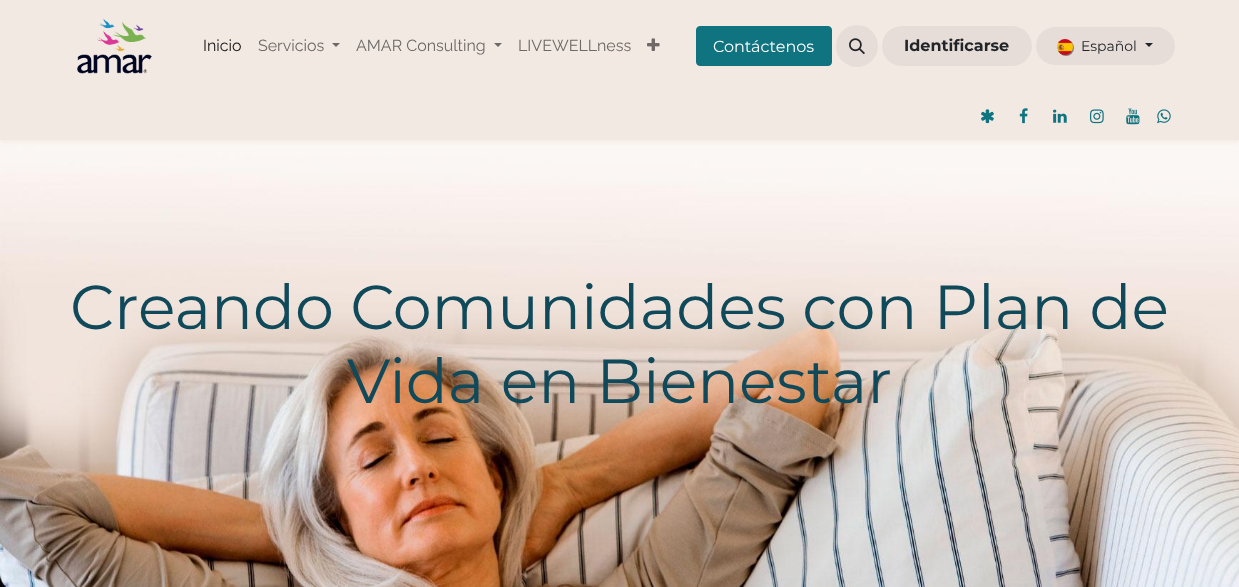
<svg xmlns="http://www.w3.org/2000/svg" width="1239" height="587">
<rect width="100%" height="100%" fill="#fff"/>
<image x="0" y="140" width="1239" height="447" href="media/11.png"/>
<rect y="2" width="1239" height="140" fill="#f3e9e3" filter="blur(2px)"/>
<rect width="1239" height="140" fill="#f3e9e3"/>
<image x="77" y="18" width="75" height="56" href="media/1.png"/>
<text x="203" y="51" style="font-family:Raleway;font-size:16px;fill:#181717">Inicio</text>
<text x="258" y="51" style="font-family:Raleway;font-size:16px;fill:#6d6966">Servicios</text>
<path d="M332 43h8l-4 4z" fill="#6d6966"/>
<text x="356" y="51" style="font-family:Raleway;font-size:16px;fill:#6d6966">AMAR Consulting</text>
<path d="M494 43h8l-4 4z" fill="#6d6966"/>
<text x="518" y="51" style="font-family:Raleway;font-size:16px;fill:#6d6966">LIVEWELLness</text>
<image x="647" y="38" width="13" height="13" href="media/2.png"/>
<rect x="696.5" y="26.5" width="135" height="39" rx="3.5" fill="#0f7380" stroke="#0f7380"/>
<text x="713" y="52" style="font-family:Montserrat;font-size:16px;fill:#fff">Contáctenos</text>
<circle cx="857" cy="46" r="21" fill="#e7ddd8"/>
<image x="849" y="38" width="16" height="17" href="media/3.png"/>
<rect x="882" y="26" width="150" height="40" rx="20" fill="#e7ddd8"/>
<text x="904" y="51" style="font-family:Montserrat;font-size:16px;font-weight:bold;fill:#212529">Identificarse</text>
<rect x="1036" y="27" width="139" height="38" rx="19" fill="#e7ddd8"/>
<rect x="1058" y="40" width="16" height="16" rx="8" fill="#0000006e" filter="blur(0.5px)"/>
<image x="1057" y="39" width="16" height="16" href="media/4.png"/>
<text x="1081" y="51" style="font-family:Montserrat;font-size:14px;fill:#212529">Español</text>
<path d="M1145 43h8l-4 4z" fill="#212529"/>
<image x="981" y="109" width="13" height="15" href="media/5.png"/>
<image x="1019" y="108" width="9" height="16" href="media/6.png"/>
<image x="1053" y="109" width="14" height="14" href="media/7.png"/>
<image x="1090" y="109" width="14" height="15" href="media/8.png"/>
<image x="1126" y="108" width="14" height="17" href="media/9.png"/>
<image x="1157" y="109" width="14" height="15" href="media/10.png"/>
<text x="70" y="329" style="font-family:Montserrat;font-size:62px;fill:#104a5a">Creando Comunidades con Plan de</text>
<text x="347" y="403" style="font-family:Montserrat;font-size:62px;fill:#104a5a">Vida en Bienestar</text>
</svg>
